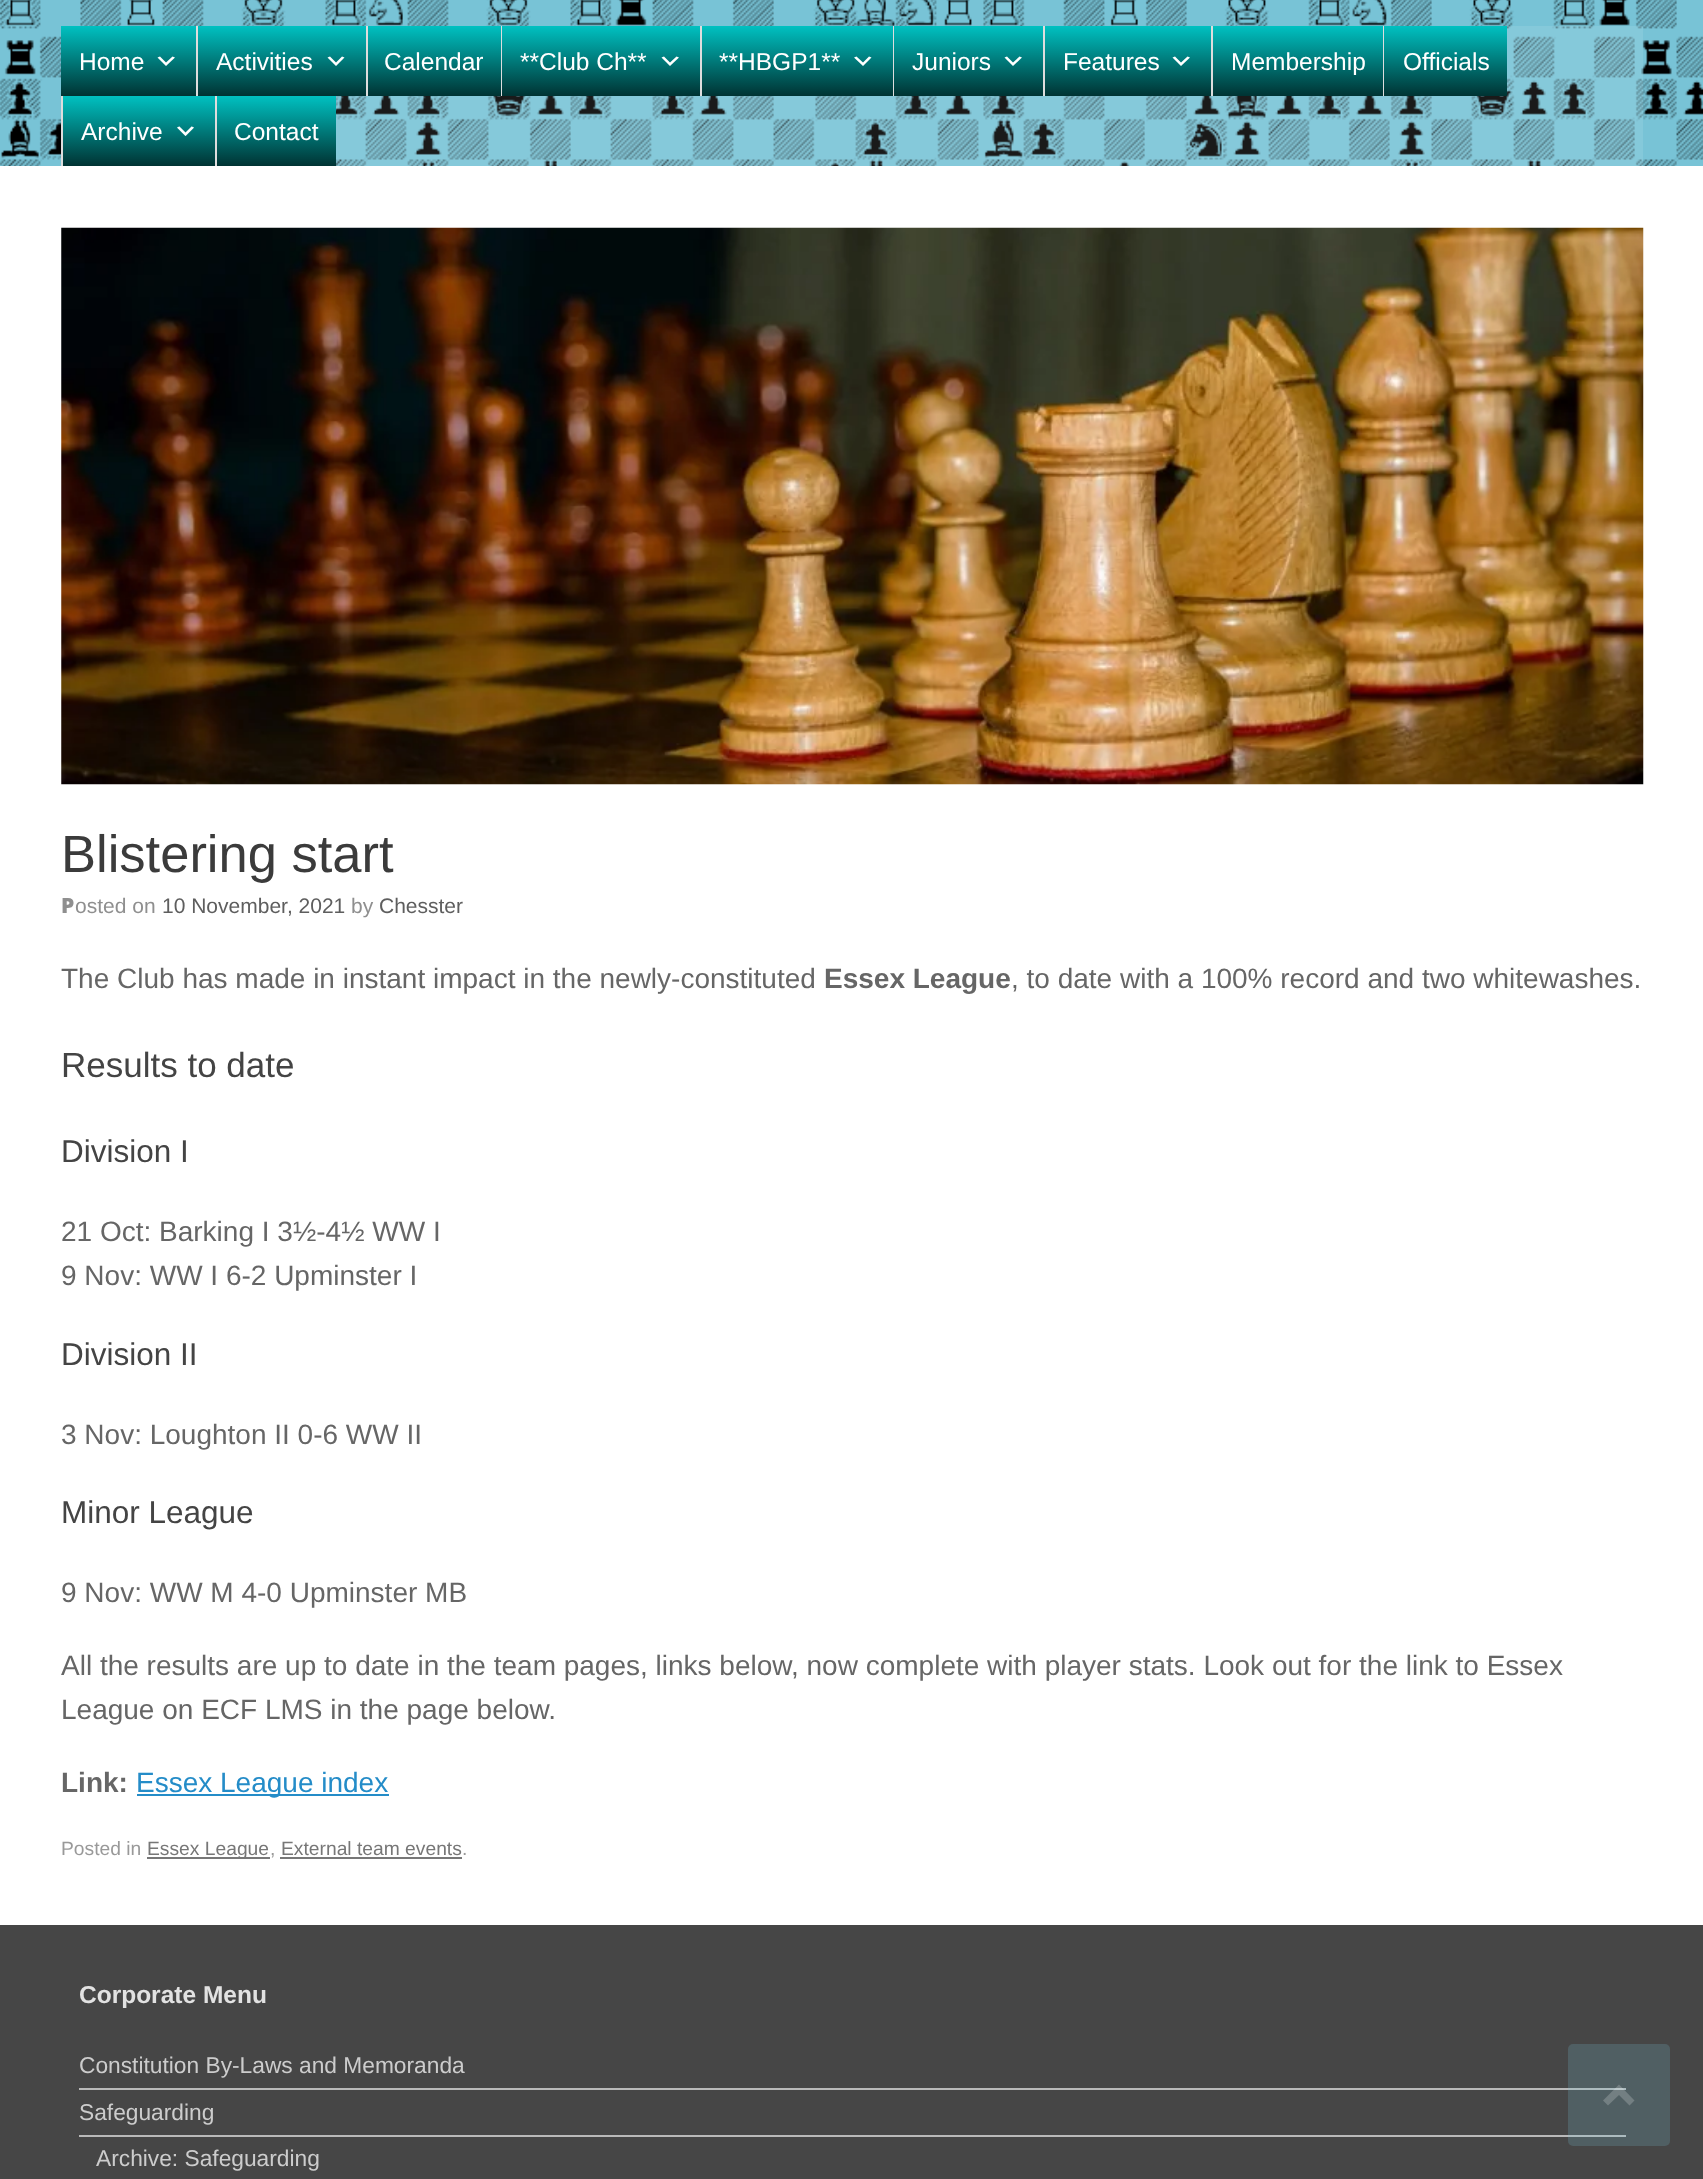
<svg xmlns="http://www.w3.org/2000/svg" width="1703" height="2179">
<defs>
<linearGradient id="g1" gradientUnits="userSpaceOnUse" x1="129" y1="26" x2="129" y2="96"><stop offset="0" stop-color="#00c1c1"/><stop offset="1" stop-color="#033"/></linearGradient>
<linearGradient id="g2" gradientUnits="userSpaceOnUse" x1="282" y1="26" x2="282" y2="96"><stop offset="0" stop-color="#00c1c1"/><stop offset="1" stop-color="#033"/></linearGradient>
<linearGradient id="g3" gradientUnits="userSpaceOnUse" x1="434" y1="26" x2="434" y2="96"><stop offset="0" stop-color="#00c1c1"/><stop offset="1" stop-color="#033"/></linearGradient>
<linearGradient id="g4" gradientUnits="userSpaceOnUse" x1="601" y1="26" x2="601" y2="96"><stop offset="0" stop-color="#00c1c1"/><stop offset="1" stop-color="#033"/></linearGradient>
<linearGradient id="g5" gradientUnits="userSpaceOnUse" x1="797" y1="26" x2="797" y2="96"><stop offset="0" stop-color="#00c1c1"/><stop offset="1" stop-color="#033"/></linearGradient>
<linearGradient id="g6" gradientUnits="userSpaceOnUse" x1="969" y1="26" x2="969" y2="96"><stop offset="0" stop-color="#00c1c1"/><stop offset="1" stop-color="#033"/></linearGradient>
<linearGradient id="g7" gradientUnits="userSpaceOnUse" x1="1128" y1="26" x2="1128" y2="96"><stop offset="0" stop-color="#00c1c1"/><stop offset="1" stop-color="#033"/></linearGradient>
<linearGradient id="g8" gradientUnits="userSpaceOnUse" x1="1298" y1="26" x2="1298" y2="96"><stop offset="0" stop-color="#00c1c1"/><stop offset="1" stop-color="#033"/></linearGradient>
<linearGradient id="g9" gradientUnits="userSpaceOnUse" x1="1446" y1="26" x2="1446" y2="96"><stop offset="0" stop-color="#00c1c1"/><stop offset="1" stop-color="#033"/></linearGradient>
<linearGradient id="g10" gradientUnits="userSpaceOnUse" x1="139" y1="96" x2="139" y2="166"><stop offset="0" stop-color="#00c1c1"/><stop offset="1" stop-color="#033"/></linearGradient>
<linearGradient id="g11" gradientUnits="userSpaceOnUse" x1="277" y1="96" x2="277" y2="166"><stop offset="0" stop-color="#00c1c1"/><stop offset="1" stop-color="#033"/></linearGradient>
</defs>
<rect width="100%" height="100%" fill="#464646"/>
<rect width="1703" height="166" fill="#78c3d6"/>
<image x="0" y="0" width="1703" height="166" href="media/1.png"/>
<rect x="336" y="26" width="1307" height="140" fill="#ffffff1a"/>
<rect x="61" y="26" width="135" height="70" fill="url(#g1)"/>
<text x="79" y="70" style="font-family:Liberation Sans;font-size:24.5px;fill:#fff">Home</text>
<path d="M160 56.5l6 6l6.5-6l2.5 1l-9 8.5l-8.5-8.5z" fill="#fff"/>
<rect x="196" y="26" width="2" height="70" fill="#ddd"/>
<rect x="198" y="26" width="168" height="70" fill="url(#g2)"/>
<text x="216" y="70" style="font-family:Liberation Sans;font-size:24.5px;fill:#fff">Activities</text>
<path d="M330 56.5l6 6l6-6l2.5 1l-8.5 8.5l-8.5-8.5z" fill="#fff"/>
<rect x="366" y="26" width="2" height="70" fill="#ddd"/>
<rect x="368" y="26" width="133" height="70" fill="url(#g3)"/>
<text x="384" y="70" style="font-family:Liberation Sans;font-size:24.5px;fill:#fff">Calendar</text>
<rect x="501" y="26" width="1" height="70" fill="#ddd"/>
<rect x="502" y="26" width="198" height="70" fill="url(#g4)"/>
<text x="520" y="70" style="font-family:Liberation Sans;font-size:24.5px;fill:#fff">**Club Ch**</text>
<path d="M664 56.5l6 6l6.5-6l2.5 1l-9 8.5l-8.5-8.5z" fill="#fff"/>
<rect x="700" y="26" width="2" height="70" fill="#ddd"/>
<rect x="702" y="26" width="191" height="70" fill="url(#g5)"/>
<text x="719" y="70" style="font-family:Liberation Sans;font-size:24.5px;fill:#fff">**HBGP1**</text>
<path d="M856.5 56.5l6.5 6l6-6l2.5 1l-8.5 8.5l-9-8.5z" fill="#fff"/>
<rect x="893" y="26" width="1" height="70" fill="#ddd"/>
<rect x="894" y="26" width="149" height="70" fill="url(#g6)"/>
<text x="912" y="70" style="font-family:Liberation Sans;font-size:24.5px;fill:#fff">Juniors</text>
<path d="M1007 56.5l6 6l6.5-6l2.5 1l-9 8.5l-8.5-8.5z" fill="#fff"/>
<rect x="1043" y="26" width="2" height="70" fill="#ddd"/>
<rect x="1045" y="26" width="166" height="70" fill="url(#g7)"/>
<text x="1063" y="70" style="font-family:Liberation Sans;font-size:24.5px;fill:#fff">Features</text>
<path d="M1175 56.5l6 6l6.5-6l2.5 1l-9 8.5l-8.5-8.5z" fill="#fff"/>
<rect x="1211" y="26" width="2" height="70" fill="#ddd"/>
<rect x="1213" y="26" width="170" height="70" fill="url(#g8)"/>
<text x="1231" y="70" style="font-family:Liberation Sans;font-size:24.5px;fill:#fff">Membership</text>
<rect x="1383" y="26" width="1" height="70" fill="#ddd"/>
<rect x="1384" y="26" width="123" height="70" fill="url(#g9)"/>
<text x="1403" y="70" style="font-family:Liberation Sans;font-size:24.5px;fill:#fff">Officials</text>
<rect x="61" y="96" width="2" height="70" fill="#ddd"/>
<rect x="63" y="96" width="152" height="70" fill="url(#g10)"/>
<text x="81" y="140" style="font-family:Liberation Sans;font-size:24.5px;fill:#fff">Archive</text>
<image x="177" y="126" width="17" height="10" href="media/2.png"/>
<rect x="215" y="96" width="2" height="70" fill="#ddd"/>
<rect x="217" y="96" width="119" height="70" fill="url(#g11)"/>
<text x="234" y="140" style="font-family:Liberation Sans;font-size:24.5px;fill:#fff">Contact</text>
<rect y="166" width="1703" height="1759" fill="#fff"/>
<image x="61" y="227" width="1583" height="558" href="media/3.png"/>
<text x="61" y="872" style="font-family:Liberation Sans;font-size:52.5px;fill:#3b3b3b">Blistering start</text>
<text x="61" y="913" style="font-family:Noto Sans;font-size:21px;font-weight:900;fill:#8f8f8f">P</text>
<text x="75" y="913" style="font-family:Liberation Sans;font-size:21px;fill:#8f8f8f">osted on</text>
<text x="162" y="913" style="font-family:Liberation Sans;font-size:21px;fill:#5e5e5e">10 November, 2021</text>
<text x="351" y="913" style="font-family:Liberation Sans;font-size:21px;fill:#8f8f8f">by</text>
<text x="379" y="913" style="font-family:Liberation Sans;font-size:21px;fill:#5e5e5e">Chesster</text>
<text x="61" y="988" style="font-family:Liberation Sans;font-size:28px;fill:#666">The Club has made in instant impact in the newly-constituted</text>
<text x="824" y="988" style="font-family:Liberation Sans;font-size:28px;font-weight:bold;fill:#666">Essex League</text>
<text x="1011" y="988" style="font-family:Liberation Sans;font-size:28px;fill:#666">, to date with a 100% record and two whitewashes.</text>
<text x="61" y="1077" style="font-family:Liberation Sans;font-size:35px;fill:#444">Results to date</text>
<text x="61" y="1162" style="font-family:Liberation Sans;font-size:31.5px;fill:#444">Division I</text>
<text x="61" y="1241" style="font-family:Liberation Sans;font-size:28px;fill:#666">21 Oct: Barking I 3½-4½ WW I</text>
<text x="61" y="1285" style="font-family:Liberation Sans;font-size:28px;fill:#666">9 Nov: WW I 6-2 Upminster I</text>
<text x="61" y="1365" style="font-family:Liberation Sans;font-size:31.5px;fill:#444">Division II</text>
<text x="61" y="1444" style="font-family:Liberation Sans;font-size:28px;fill:#666">3 Nov: Loughton II 0-6 WW II</text>
<text x="61" y="1523" style="font-family:Liberation Sans;font-size:31.5px;fill:#444">Minor League</text>
<text x="61" y="1602" style="font-family:Liberation Sans;font-size:28px;fill:#666">9 Nov: WW M 4-0 Upminster MB</text>
<text x="61" y="1675" style="font-family:Liberation Sans;font-size:28px;fill:#666">All the results are up to date in the team pages, links below, now complete with player stats. Look out for the link to Essex</text>
<text x="61" y="1719" style="font-family:Liberation Sans;font-size:28px;fill:#666">League on ECF LMS in the page below.</text>
<text x="61" y="1792" style="font-family:Liberation Sans;font-size:28px;font-weight:bold;fill:#666">Link:</text>
<rect x="137" y="1794" width="252" height="2" fill="#248cc8"/>
<text x="136" y="1792" style="font-family:Liberation Sans;font-size:28px;fill:#248cc8">Essex League index</text>
<text x="61" y="1855" style="font-family:Liberation Sans;font-size:19.25px;fill:#999">Posted in</text>
<rect x="147" y="1857" width="123" height="2" fill="#777"/>
<text x="147" y="1855" style="font-family:Liberation Sans;font-size:19.25px;fill:#777">Essex League</text>
<text x="270" y="1855" style="font-family:Liberation Sans;font-size:19.25px;fill:#999">,</text>
<text x="281" y="1855" style="font-family:Liberation Sans;font-size:19.25px;fill:#777">External team events</text>
<rect x="280" y="1857" width="182" height="2" fill="#777"/>
<text x="462" y="1855" style="font-family:Liberation Sans;font-size:19.25px;fill:#999">.</text>
<text x="79" y="2003" style="font-family:Liberation Sans;font-size:24.5px;font-weight:bold;fill:#e2e2e2">Corporate Menu</text>
<rect x="79" y="2088" width="1547" height="2" fill="#b9b9b9"/>
<text x="79" y="2073" style="font-family:Liberation Sans;font-size:22.75px;fill:#ccc">Constitution By-Laws and Memoranda</text>
<rect x="79" y="2135" width="1547" height="2" fill="#b9b9b9"/>
<text x="79" y="2120" style="font-family:Liberation Sans;font-size:22.75px;fill:#ccc">Safeguarding</text>
<text x="96" y="2166" style="font-family:Liberation Sans;font-size:22.75px;fill:#ccc">Archive: Safeguarding</text>
<rect x="1568" y="2044" width="102" height="102" rx="5" fill="#78c3d633"/>
<path d="M1634.5 2100.5l-15.5-16l-16 16l5 5l11-10.5l10.5 10.5z" fill="#ffffff33"/>
</svg>
